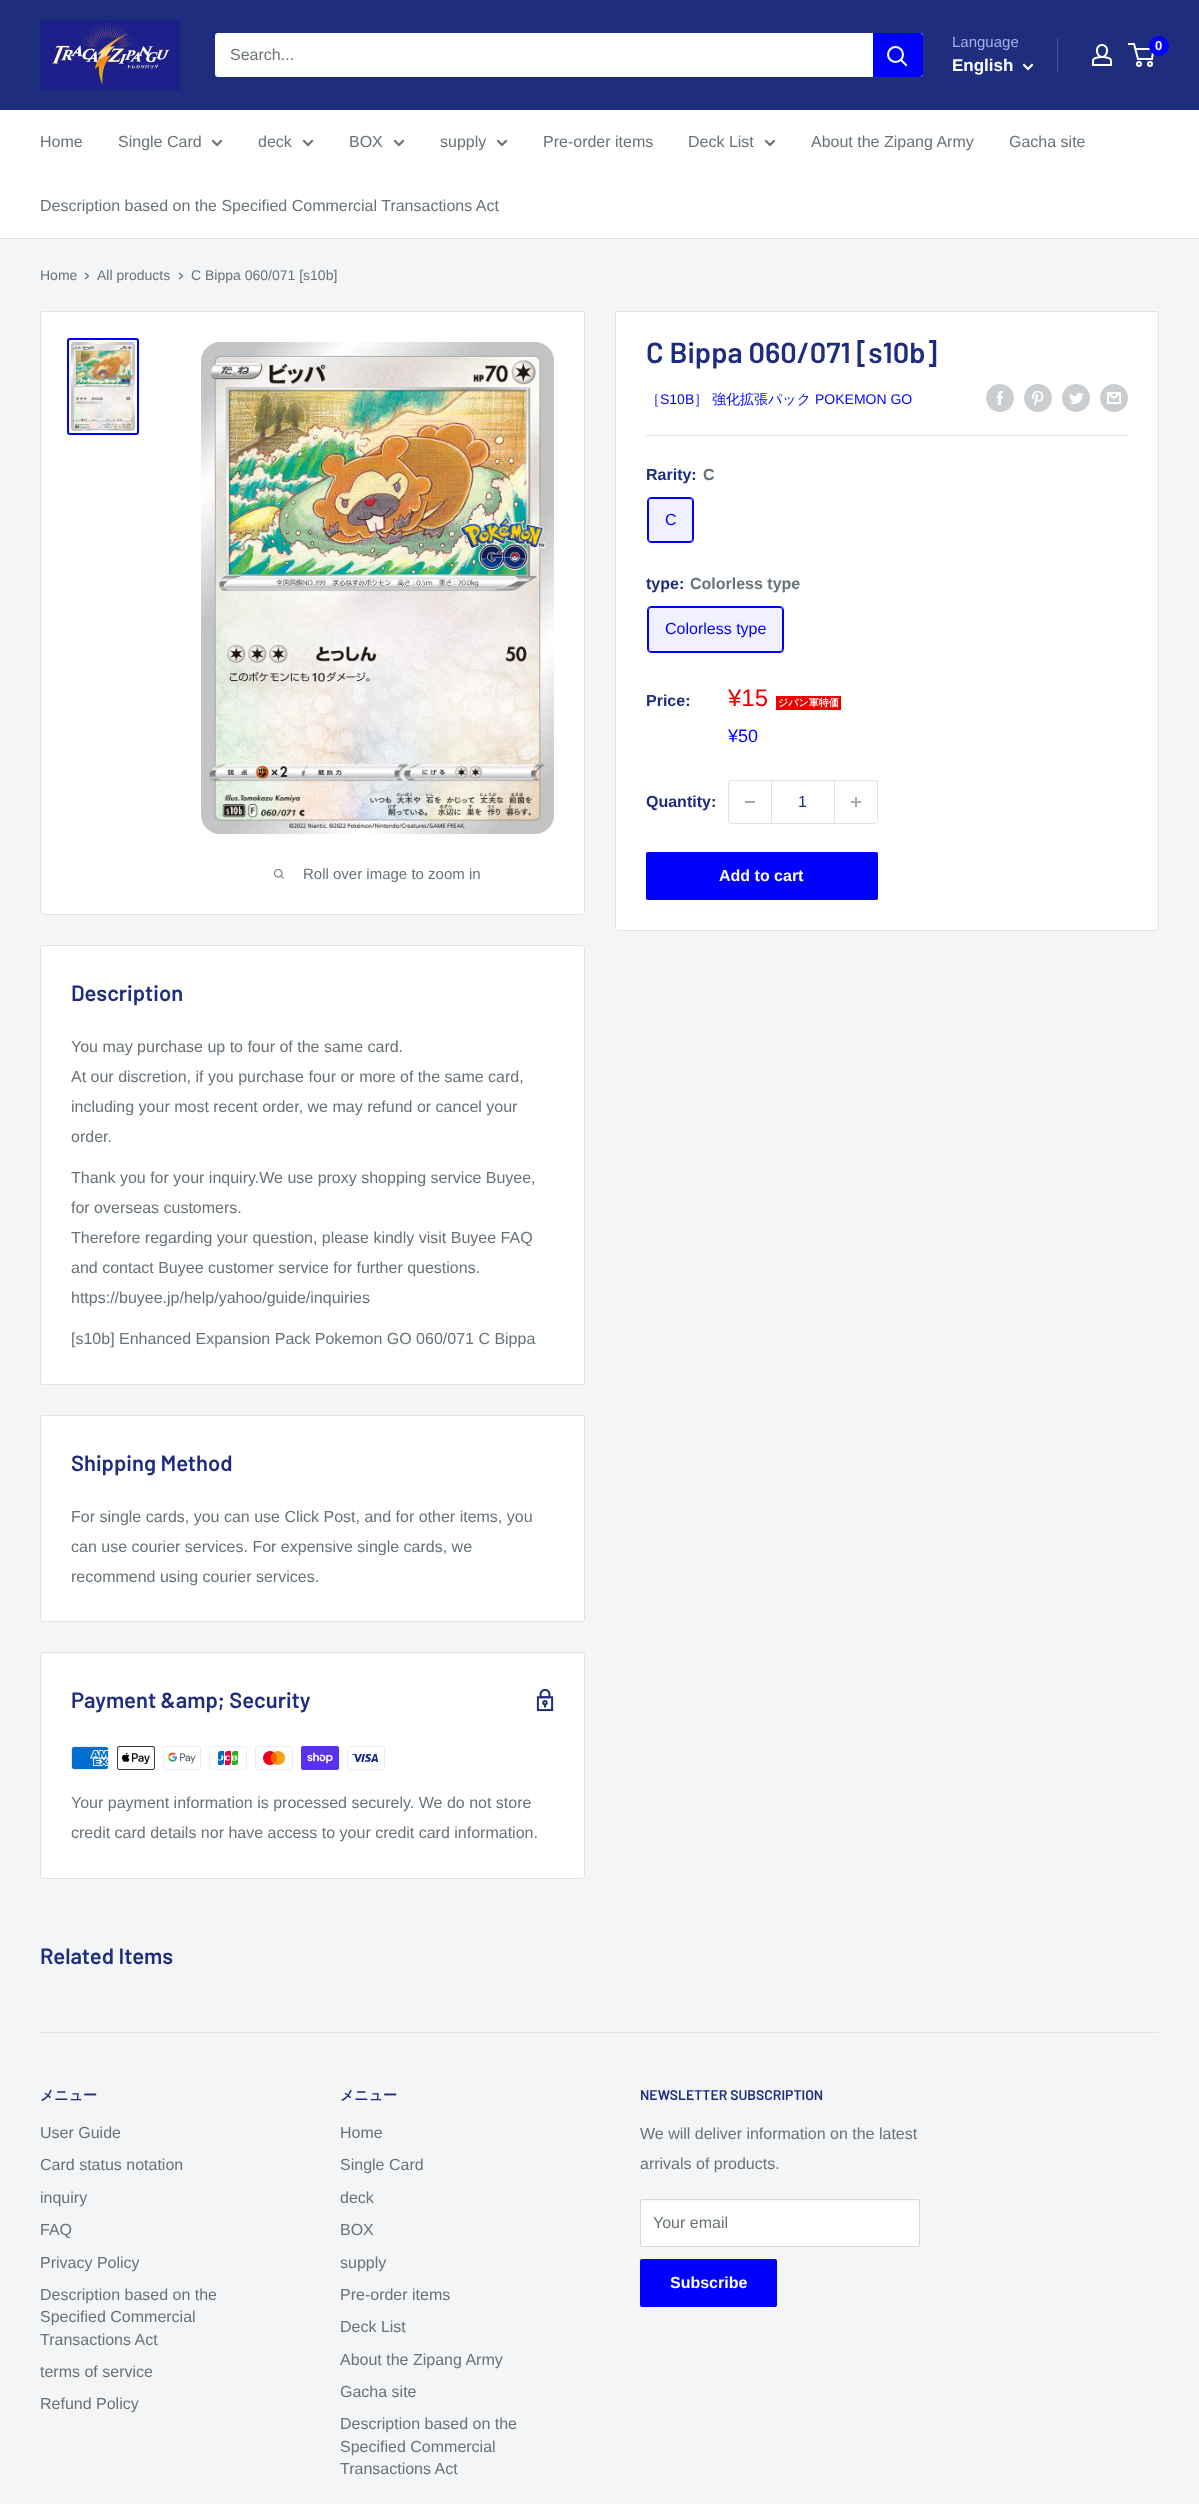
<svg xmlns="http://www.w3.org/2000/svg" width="1199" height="2504">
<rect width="100%" height="100%" fill="#f3f5f6"/>
<rect width="1199" height="110" fill="#1e2d7d"/>
<image x="40" y="20" width="140" height="70" href="media/1.png"/>
<rect x="215" y="33" width="708" height="44" rx="3" fill="#fff"/>
<text x="230" y="60" style="font-family:Liberation Sans;font-size:16px;fill:#677279">Search...</text>
<path d="M873 33h47c1.5 0 3 1.5 3 3v38c0 1.5-1.5 3-3 3h-47z" fill="#00f"/>
<path d="M906 65l-5-5" fill="none" stroke="#fff" stroke-width="2" stroke-linecap="square"/>
<circle cx="895.5" cy="54.5" r="7.5" fill="none" stroke="#fff" stroke-width="2"/>
<text x="952" y="47" style="font-family:Liberation Sans;font-size:15px;fill:#a3afef">Language</text>
<text x="952" y="71" style="font-family:Liberation Sans;font-size:17px;font-weight:bold;fill:#fff">English</text>
<path d="M1032 65l-4 4l-4-4" fill="none" stroke="#fff" stroke-width="2" stroke-linecap="square"/>
<rect x="1057" y="38" width="1" height="34" fill="#46549f"/>
<image x="1092" y="44" width="20" height="22" href="media/2.png"/>
<circle cx="1139" cy="64" r="2" fill="none" stroke="#fff" stroke-width="2"/>
<circle cx="1150" cy="64" r="2" fill="none" stroke="#fff" stroke-width="2"/>
<path d="M1135.5 49h18l-1.5 10h-14l-4-15h-6" fill="none" stroke="#fff" stroke-width="2"/>
<circle cx="1159" cy="46" r="10" fill="#00f"/>
<text x="1155" y="50" style="font-family:Liberation Sans;font-size:13px;font-weight:bold;fill:#fff">0</text>
<rect y="110" width="1199" height="128" fill="#fff"/>
<rect y="238" width="1199" height="1" fill="#e1e3e4"/>
<text x="40" y="147" style="font-family:Liberation Sans;font-size:16px;fill:#677279">Home</text>
<text x="118" y="147" style="font-family:Liberation Sans;font-size:16px;fill:#677279">Single Card</text>
<path d="M221 141l-4 4l-4-4" fill="none" stroke="#677279" stroke-width="2" stroke-linecap="square"/>
<text x="258" y="147" style="font-family:Liberation Sans;font-size:16px;fill:#677279">deck</text>
<path d="M312 141l-4 4l-4-4" fill="none" stroke="#677279" stroke-width="2" stroke-linecap="square"/>
<text x="349" y="147" style="font-family:Liberation Sans;font-size:16px;fill:#677279">BOX</text>
<path d="M403 141l-4 4l-4-4" fill="none" stroke="#677279" stroke-width="2" stroke-linecap="square"/>
<text x="440" y="147" style="font-family:Liberation Sans;font-size:16px;fill:#677279">supply</text>
<path d="M506 141l-4 4l-4-4" fill="none" stroke="#677279" stroke-width="2" stroke-linecap="square"/>
<text x="543" y="147" style="font-family:Liberation Sans;font-size:16px;fill:#677279">Pre-order items</text>
<text x="688" y="147" style="font-family:Liberation Sans;font-size:16px;fill:#677279">Deck List</text>
<path d="M774 141l-4 4l-4-4" fill="none" stroke="#677279" stroke-width="2" stroke-linecap="square"/>
<text x="811" y="147" style="font-family:Liberation Sans;font-size:16px;fill:#677279">About the Zipang Army</text>
<text x="1009" y="147" style="font-family:Liberation Sans;font-size:16px;fill:#677279">Gacha site</text>
<text x="40" y="211" style="font-family:Liberation Sans;font-size:16px;fill:#677279">Description based on the Specified Commercial Transactions Act</text>
<text x="40" y="280" style="font-family:Liberation Sans;font-size:14px;fill:#677279">Home</text>
<path d="M85.5 273.5l3 2.5l-3 2.5" fill="none" stroke="#677279" stroke-width="1.3" stroke-linecap="square"/>
<text x="97" y="280" style="font-family:Liberation Sans;font-size:14px;fill:#677279">All products</text>
<path d="M179.5 273.5l3 2.5l-3 2.5" fill="none" stroke="#677279" stroke-width="1.3" stroke-linecap="square"/>
<text x="191" y="280" style="font-family:Liberation Sans;font-size:14px;fill:#677279">C Bippa 060/071 [s10b]</text>
<rect x="40.5" y="311.5" width="544" height="603" rx="2.5" fill="#fff" stroke="#e1e3e4"/>
<rect x="68" y="339" width="70" height="95" rx="2" fill="none" stroke="#00f" stroke-width="2"/>
<image x="71" y="342" width="64" height="89" href="media/3.png"/>
<image x="201" y="342" width="353" height="492" href="media/4.png"/>
<image x="274" y="869" width="10" height="10" href="media/5.png"/>
<text x="303" y="879" style="font-family:Liberation Sans;font-size:15px;fill:#677279">Roll over image to zoom in</text>
<rect x="615.5" y="311.5" width="543" height="619" rx="2.5" fill="#fff" stroke="#e1e3e4"/>
<text x="646" y="363" style="font-family:Barlow;font-size:29px;font-weight:600;fill:#1e2d7d">C Bippa 060/071 [s10b]</text>
<text x="646" y="404" style="font-family:WenQuanYi Zen Hei;font-size:14px;font-weight:500;fill:#00f">［</text>
<text x="660" y="404" style="font-family:Liberation Sans;font-size:14px;fill:#00f">S10B</text>
<text x="694" y="404" style="font-family:WenQuanYi Zen Hei;font-size:14px;font-weight:500;fill:#00f">］</text>
<text x="712" y="404" style="font-family:WenQuanYi Zen Hei;font-size:14px;font-weight:500;fill:#00f">強化拡張パック</text>
<text x="815" y="404" style="font-family:Liberation Sans;font-size:14px;fill:#00f">POKEMON GO</text>
<image x="986" y="384" width="28" height="28" href="media/6.png"/>
<image x="1024" y="384" width="28" height="28" href="media/7.png"/>
<image x="1062" y="384" width="28" height="28" href="media/8.png"/>
<image x="1100" y="384" width="28" height="28" href="media/9.png"/>
<rect x="646" y="435" width="482" height="1" fill="#e1e3e4"/>
<text x="646" y="480" style="font-family:Liberation Sans;font-size:16px;font-weight:bold;fill:#1e2d7d">Rarity:</text>
<text x="703" y="480" style="font-family:Liberation Sans;font-size:16px;font-weight:bold;fill:#677279">C</text>
<rect x="647.5" y="497.5" width="46" height="45" rx="3.5" fill="none" stroke="#00f"/>
<rect x="648" y="498" width="45" height="44" fill="#0000ff0f"/>
<rect x="648.5" y="498.5" width="44" height="43" rx="2.5" fill="none" stroke="#00f"/>
<text x="665" y="525" style="font-family:Liberation Sans;font-size:16px;fill:#00f">C</text>
<text x="646" y="589" style="font-family:Liberation Sans;font-size:16px;font-weight:bold;fill:#1e2d7d">type:</text>
<text x="690" y="589" style="font-family:Liberation Sans;font-size:16px;font-weight:bold;fill:#677279">Colorless type</text>
<rect x="647.5" y="606.5" width="136" height="46" rx="3.5" fill="none" stroke="#00f"/>
<rect x="648" y="607" width="135" height="45" fill="#0000ff0f"/>
<rect x="648.5" y="607.5" width="134" height="44" rx="2.5" fill="none" stroke="#00f"/>
<text x="665" y="634" style="font-family:Liberation Sans;font-size:16px;fill:#00f">Colorless type</text>
<text x="646" y="706" style="font-family:Liberation Sans;font-size:16px;font-weight:bold;fill:#1e2d7d">Price:</text>
<text x="728" y="706" style="font-family:Liberation Sans;font-size:24px;fill:#e00">¥15</text>
<rect x="776" y="696" width="65" height="14" fill="#e00"/>
<text x="778" y="706" style="font-family:WenQuanYi Zen Hei;font-size:10px;font-weight:bold;fill:#fff">ジパン軍特価</text>
<text x="728" y="742" style="font-family:Liberation Sans;font-size:18px;fill:#00f">¥50</text>
<text x="646" y="807" style="font-family:Liberation Sans;font-size:16px;font-weight:bold;fill:#1e2d7d">Quantity:</text>
<rect x="728.5" y="780.5" width="149" height="43" rx="2.5" fill="none" stroke="#e1e3e4"/>
<rect x="745" y="801" width="10" height="2" fill="#a4aaaf"/>
<rect x="772" y="781" width="62" height="1" fill="#f3f4f4"/>
<rect x="834" y="781" width="1" height="42" fill="#e1e3e4"/>
<rect x="771" y="781" width="1" height="42" fill="#e1e3e4"/>
<text x="798" y="807" style="font-family:Liberation Sans;font-size:16px;fill:#1e2d7d">1</text>
<image x="851" y="797" width="10" height="10" href="media/10.png"/>
<rect x="646" y="852" width="232" height="48" rx="2" fill="#00f"/>
<text x="719" y="881" style="font-family:Liberation Sans;font-size:16px;font-weight:bold;fill:#fff">Add to cart</text>
<rect x="40.5" y="945.5" width="544" height="439" rx="2.5" fill="#fff" stroke="#e1e3e4"/>
<text x="71" y="1001" style="font-family:Barlow;font-size:22px;font-weight:600;fill:#1e2d7d">Description</text>
<text x="71" y="1052" style="font-family:Liberation Sans;font-size:16px;fill:#677279">You may purchase up to four of the same card.</text>
<text x="71" y="1082" style="font-family:Liberation Sans;font-size:16px;fill:#677279">At our discretion, if you purchase four or more of the same card,</text>
<text x="71" y="1112" style="font-family:Liberation Sans;font-size:16px;fill:#677279">including your most recent order, we may refund or cancel your</text>
<text x="71" y="1142" style="font-family:Liberation Sans;font-size:16px;fill:#677279">order.</text>
<text x="71" y="1183" style="font-family:Liberation Sans;font-size:16px;fill:#677279">Thank you for your inquiry.We use proxy shopping service Buyee,</text>
<text x="71" y="1213" style="font-family:Liberation Sans;font-size:16px;fill:#677279">for overseas customers.</text>
<text x="71" y="1243" style="font-family:Liberation Sans;font-size:16px;fill:#677279">Therefore regarding your question, please kindly visit Buyee FAQ</text>
<text x="71" y="1273" style="font-family:Liberation Sans;font-size:16px;fill:#677279">and contact Buyee customer service for further questions.</text>
<text x="71" y="1303" style="font-family:Liberation Sans;font-size:16px;fill:#677279">https://buyee.jp/help/yahoo/guide/inquiries</text>
<text x="71" y="1344" style="font-family:Liberation Sans;font-size:16px;fill:#677279">[s10b] Enhanced Expansion Pack Pokemon GO 060/071 C Bippa</text>
<rect x="40.5" y="1415.5" width="544" height="206" rx="2.5" fill="#fff" stroke="#e1e3e4"/>
<text x="71" y="1471" style="font-family:Barlow;font-size:22px;font-weight:600;fill:#1e2d7d">Shipping Method</text>
<text x="71" y="1522" style="font-family:Liberation Sans;font-size:16px;fill:#677279">For single cards, you can use Click Post, and for other items, you</text>
<text x="71" y="1552" style="font-family:Liberation Sans;font-size:16px;fill:#677279">can use courier services. For expensive single cards, we</text>
<text x="71" y="1582" style="font-family:Liberation Sans;font-size:16px;fill:#677279">recommend using courier services.</text>
<rect x="40.5" y="1652.5" width="544" height="226" rx="2.5" fill="#fff" stroke="#e1e3e4"/>
<text x="71" y="1708" style="font-family:Barlow;font-size:22px;font-weight:600;fill:#1e2d7d">Payment &amp;amp; Security</text>
<image x="536" y="1688" width="18" height="24" href="media/11.png"/>
<image x="71" y="1746" width="38" height="24" href="media/12.png"/>
<image x="117" y="1746" width="38" height="24" href="media/13.png"/>
<image x="163" y="1746" width="38" height="24" href="media/14.png"/>
<image x="209" y="1746" width="38" height="24" href="media/15.png"/>
<image x="255" y="1746" width="38" height="24" href="media/16.png"/>
<image x="301" y="1746" width="38" height="24" href="media/17.png"/>
<image x="347" y="1746" width="38" height="24" href="media/18.png"/>
<text x="71" y="1808" style="font-family:Liberation Sans;font-size:16px;fill:#677279">Your payment information is processed securely. We do not store</text>
<text x="71" y="1838" style="font-family:Liberation Sans;font-size:16px;fill:#677279">credit card details nor have access to your credit card information.</text>
<text x="40" y="1964" style="font-family:Barlow;font-size:22px;font-weight:600;fill:#1e2d7d">Related Items</text>
<rect x="40" y="2032" width="1119" height="1" fill="#e1e3e4"/>
<text x="40" y="2100" style="font-family:WenQuanYi Zen Hei;font-size:14px;font-weight:bold;fill:#1e2d7d">メニュー</text>
<text x="40" y="2138" style="font-family:Liberation Sans;font-size:16px;fill:#677279">User Guide</text>
<text x="40" y="2170" style="font-family:Liberation Sans;font-size:16px;fill:#677279">Card status notation</text>
<text x="40" y="2203" style="font-family:Liberation Sans;font-size:16px;fill:#677279">inquiry</text>
<text x="40" y="2235" style="font-family:Liberation Sans;font-size:16px;fill:#677279">FAQ</text>
<text x="40" y="2268" style="font-family:Liberation Sans;font-size:16px;fill:#677279">Privacy Policy</text>
<text x="40" y="2300" style="font-family:Liberation Sans;font-size:16px;fill:#677279">Description based on the</text>
<text x="40" y="2322" style="font-family:Liberation Sans;font-size:16px;fill:#677279">Specified Commercial</text>
<text x="40" y="2345" style="font-family:Liberation Sans;font-size:16px;fill:#677279">Transactions Act</text>
<text x="40" y="2377" style="font-family:Liberation Sans;font-size:16px;fill:#677279">terms of service</text>
<text x="40" y="2409" style="font-family:Liberation Sans;font-size:16px;fill:#677279">Refund Policy</text>
<text x="340" y="2100" style="font-family:WenQuanYi Zen Hei;font-size:14px;font-weight:bold;fill:#1e2d7d">メニュー</text>
<text x="340" y="2138" style="font-family:Liberation Sans;font-size:16px;fill:#677279">Home</text>
<text x="340" y="2170" style="font-family:Liberation Sans;font-size:16px;fill:#677279">Single Card</text>
<text x="340" y="2203" style="font-family:Liberation Sans;font-size:16px;fill:#677279">deck</text>
<text x="340" y="2235" style="font-family:Liberation Sans;font-size:16px;fill:#677279">BOX</text>
<text x="340" y="2268" style="font-family:Liberation Sans;font-size:16px;fill:#677279">supply</text>
<text x="340" y="2300" style="font-family:Liberation Sans;font-size:16px;fill:#677279">Pre-order items</text>
<text x="340" y="2332" style="font-family:Liberation Sans;font-size:16px;fill:#677279">Deck List</text>
<text x="340" y="2365" style="font-family:Liberation Sans;font-size:16px;fill:#677279">About the Zipang Army</text>
<text x="340" y="2397" style="font-family:Liberation Sans;font-size:16px;fill:#677279">Gacha site</text>
<text x="340" y="2429" style="font-family:Liberation Sans;font-size:16px;fill:#677279">Description based on the</text>
<text x="340" y="2452" style="font-family:Liberation Sans;font-size:16px;fill:#677279">Specified Commercial</text>
<text x="340" y="2474" style="font-family:Liberation Sans;font-size:16px;fill:#677279">Transactions Act</text>
<text x="640" y="2100" style="font-family:Barlow;font-size:14px;font-weight:600;fill:#1e2d7d">NEWSLETTER SUBSCRIPTION</text>
<text x="640" y="2139" style="font-family:Liberation Sans;font-size:16px;fill:#677279">We will deliver information on the latest</text>
<text x="640" y="2169" style="font-family:Liberation Sans;font-size:16px;fill:#677279">arrivals of products.</text>
<rect x="640" y="2199" width="280" height="48" rx="2" fill="#fff"/>
<path d="M642 2201h276c1 0 1 0 1 1c0-1 0-2-1-2h-276h-1v2c0-1 0-1 1-1z" fill="#f8f8f8"/>
<rect x="640.5" y="2199.5" width="279" height="47" rx="1.5" fill="none" stroke="#d4d6d8"/>
<text x="653" y="2228" style="font-family:Liberation Sans;font-size:16px;fill:#677279">Your email</text>
<rect x="640" y="2259" width="137" height="48" rx="2" fill="#00f"/>
<text x="670" y="2288" style="font-family:Liberation Sans;font-size:16px;font-weight:bold;fill:#fff">Subscribe</text>
</svg>
